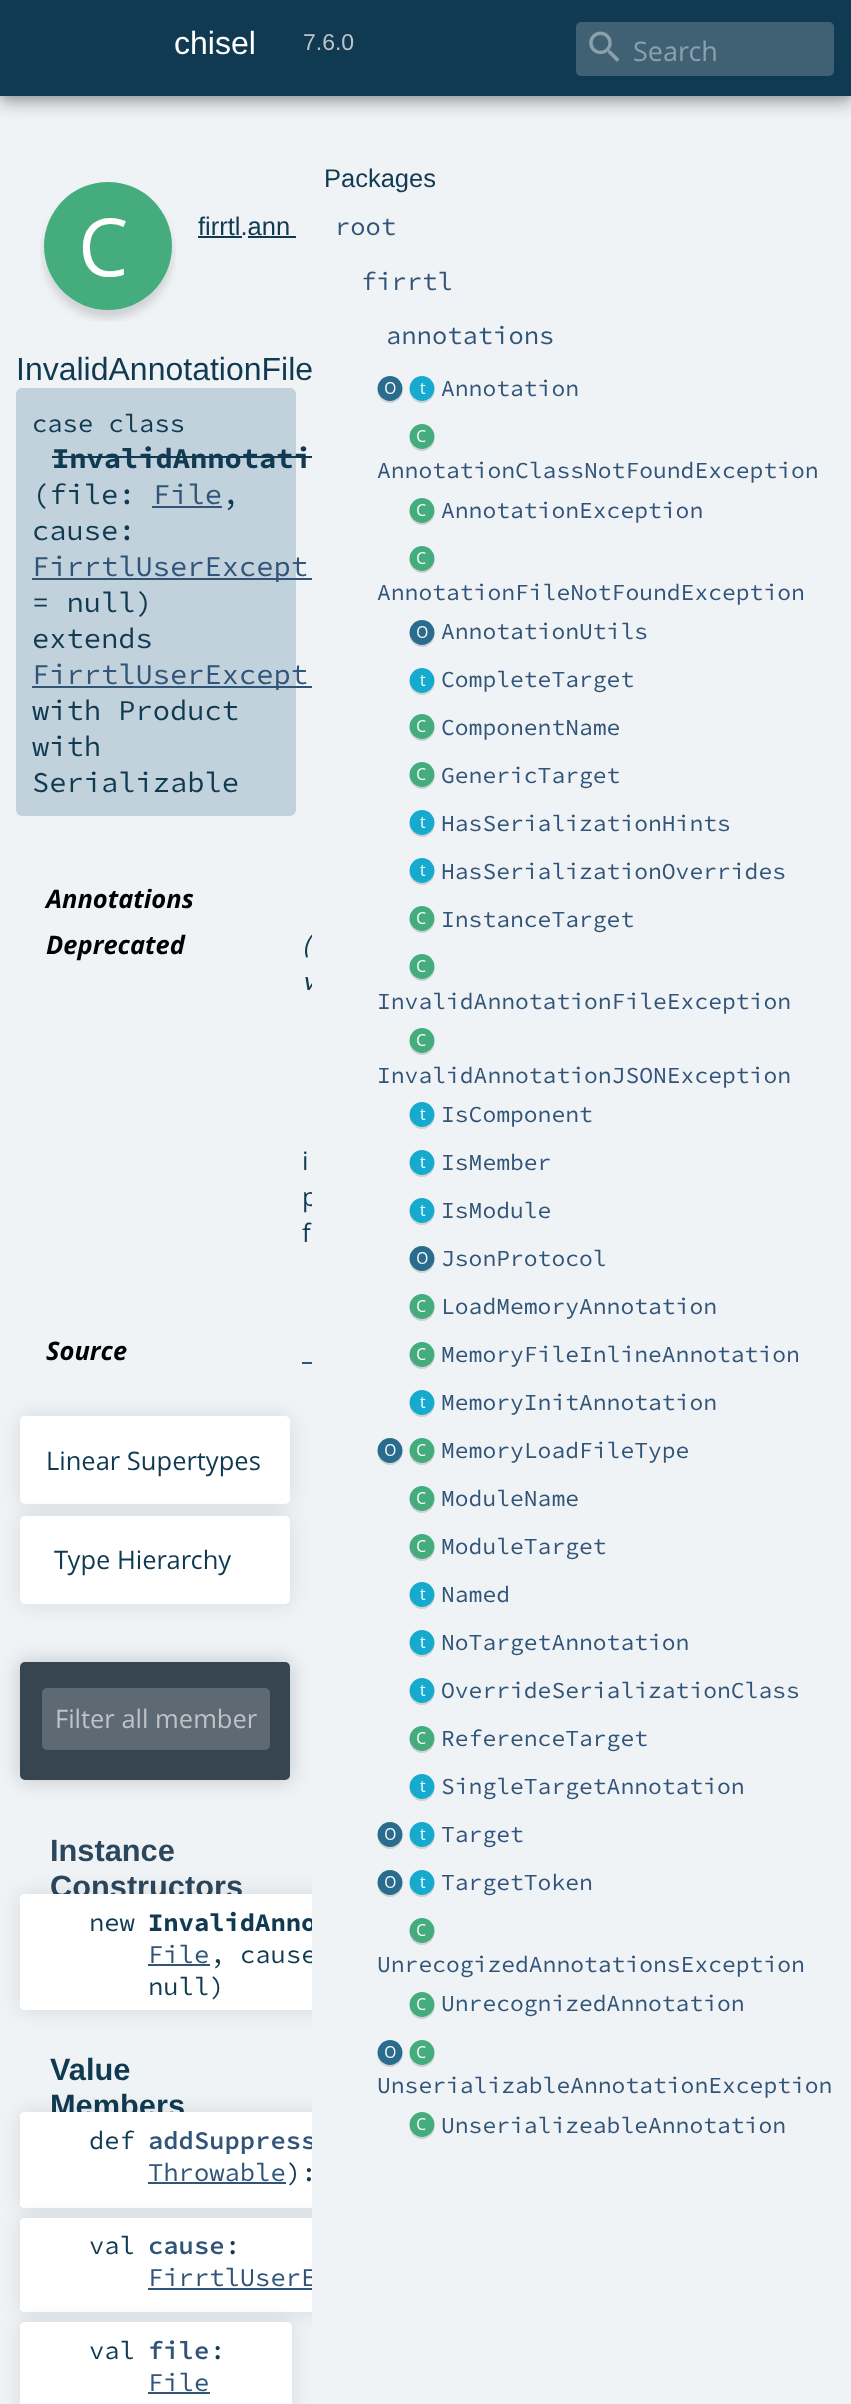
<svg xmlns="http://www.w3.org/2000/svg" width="851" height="2404">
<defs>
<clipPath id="clip1"><rect y="128" width="312" height="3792"/></clipPath>
<clipPath id="clip2"><rect x="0" y="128" width="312" height="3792"/></clipPath>
</defs>
<rect width="100%" height="100%" fill="#f0f3f6"/>
<rect y="8" width="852" height="96" fill="#00000047" filter="blur(8px)"/>
<rect width="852" height="96" fill="#0000002e" filter="blur(4px)"/>
<rect width="851" height="96" fill="#103a51"/>
<text x="174" y="54" style="font-family:Liberation Sans;font-size:32px;fill:#fff">chisel</text>
<text x="303" y="50" style="font-family:Liberation Sans;font-size:23px;fill:#bfc3c7">7.6.0</text>
<rect x="576" y="22" width="258" height="54" rx="5" fill="#406174"/>
<image x="589" y="31" width="31" height="31" href="media/1.png"/>
<text x="633" y="61" style="font-family:Open Sans;font-size:27px;fill:#8ca0ac">Search</text>
<image x="40" y="182" width="136" height="140" href="media/2.png"/>
<text x="198" y="235" style="font-family:Liberation Sans;font-size:25.5px;fill:#103a51">firrtl.ann</text>
<rect x="198" y="236" width="44" height="2" fill="#103a51"/>
<rect x="248" y="236" width="48" height="2" fill="#103a51"/>
<text x="16" y="380" style="font-family:Liberation Sans;font-size:32px;fill:#103a51">InvalidAnnotationFile</text>
<rect x="16" y="388" width="280" height="428" rx="6" fill="#c2d2dc"/>
<text x="32" y="432" style="font-family:Source Code Pro;font-size:25.5px;fill:#103a51">case class</text>
<text x="52" y="468" style="font-family:Source Code Pro;font-size:28.75px;font-weight:bold;fill:#103a51">InvalidAnnotati</text>
<rect x="52" y="456" width="260" height="2" fill="#103a51"/>
<text x="32" y="504" style="font-family:Source Code Pro;font-size:28.75px;fill:#103a51">(file:</text>
<text x="153" y="504" style="font-family:Source Code Pro;font-size:28.75px;fill:#315479">File</text>
<text x="222" y="504" style="font-family:Source Code Pro;font-size:28.75px;fill:#103a51">,</text>
<rect x="152" y="506" width="70" height="2" fill="#315479"/>
<text x="32" y="540" style="font-family:Source Code Pro;font-size:28.75px;fill:#103a51">cause:</text>
<rect x="32" y="578" width="280" height="2" fill="#315479"/>
<text x="32" y="576" style="font-family:Source Code Pro;font-size:28.75px;fill:#315479">FirrtlUserExcept</text>
<text x="32" y="612" style="font-family:Source Code Pro;font-size:28.75px;fill:#103a51">= null)</text>
<text x="32" y="648" style="font-family:Source Code Pro;font-size:28.75px;fill:#103a51">extends</text>
<rect x="32" y="686" width="280" height="2" fill="#315479"/>
<text x="32" y="684" style="font-family:Source Code Pro;font-size:28.75px;fill:#315479">FirrtlUserExcept</text>
<text x="32" y="720" style="font-family:Source Code Pro;font-size:28.75px;fill:#103a51">with Product</text>
<text x="32" y="756" style="font-family:Source Code Pro;font-size:28.75px;fill:#103a51">with</text>
<text x="32" y="792" style="font-family:Source Code Pro;font-size:28.75px;fill:#103a51">Serializable</text>
<text x="46" y="908" style="font-family:Open Sans;font-size:25.5px;font-weight:bold;font-style:italic;fill:#000">Annotations</text>
<text x="46" y="954" style="font-family:Open Sans;font-size:25.5px;font-weight:bold;font-style:italic;fill:#000">Deprecated</text>
<g clip-path="url(#clip1)">
<text x="302" y="954" style="font-family:Lato;font-size:25.5px;font-style:italic;fill:#103a51">(</text>
<text x="302" y="990" style="font-family:Lato;font-size:25.5px;font-style:italic;fill:#103a51">v</text>
</g>
<text x="302" y="1170" style="font-family:Open Sans;font-size:25.5px;fill:#103a51">i</text>
<g clip-path="url(#clip1)">
<text x="302" y="1206" style="font-family:Open Sans;font-size:25.5px;fill:#103a51">p</text>
</g>
<text x="302" y="1242" style="font-family:Open Sans;font-size:25.5px;fill:#103a51">f</text>
<text x="46" y="1360" style="font-family:Open Sans;font-size:25.5px;font-weight:bold;font-style:italic;fill:#000">Source</text>
<rect x="302" y="1362" width="10" height="2" fill="#315479"/>
<rect x="20" y="1416" width="270" height="88" rx="5" fill="#0000001a" filter="blur(10px)"/>
<rect x="20" y="1416" width="270" height="88" rx="5" fill="#fff"/>
<text x="46" y="1470" style="font-family:Open Sans;font-size:25.5px;fill:#103a51">Linear Supertypes</text>
<rect x="20" y="1516" width="270" height="88" rx="5" fill="#0000001a" filter="blur(10px)"/>
<rect x="20" y="1516" width="270" height="88" rx="5" fill="#fff"/>
<text x="54" y="1569" style="font-family:Open Sans;font-size:25.5px;fill:#103a51">Type Hierarchy</text>
<rect x="20" y="1662" width="270" height="118" rx="5" fill="#00000033" filter="blur(10px)"/>
<rect x="20" y="1662" width="270" height="118" rx="5" fill="#364550"/>
<rect x="42" y="1688" width="228" height="62" rx="5" fill="#5e6a73"/>
<text x="55" y="1728" style="font-family:Open Sans;font-size:25.5px;fill:#bfc3c7">Filter all member</text>
<text x="50" y="1861" style="font-family:Liberation Sans;font-size:30.75px;font-weight:bold;fill:#2c475c">Instance</text>
<text x="50" y="1897" style="font-family:Liberation Sans;font-size:30.75px;font-weight:bold;fill:#2c475c">Constructors</text>
<image x="377" y="1870" width="26" height="27" href="media/3.png"/>
<image x="409" y="1870" width="26" height="27" href="media/4.png"/>
<image x="409" y="1918" width="26" height="27" href="media/5.png"/>
<image x="409" y="1992" width="26" height="27" href="media/5.png"/>
<image x="377" y="2040" width="26" height="27" href="media/3.png"/>
<image x="409" y="2040" width="26" height="27" href="media/5.png"/>
<g clip-path="url(#clip2)">
<rect x="20" y="1894" width="680" height="116" rx="5" fill="#0000001a" filter="blur(10px)"/>
</g>
<path d="M25 1894h287v116h-287c-3 0-5-2-5-5v-106c0-3 2-5 5-5z" fill="#fff"/>
<rect x="20" y="1896" width="1" height="112" fill="#fff"/>
<text x="89" y="1931" style="font-family:Source Code Pro;font-size:25.5px;fill:#103a51">new</text>
<g clip-path="url(#clip1)">
<text x="148" y="1931" style="font-family:Source Code Pro;font-size:25.5px;font-weight:bold;fill:#103a51">InvalidAnno</text>
</g>
<text x="148" y="1963" style="font-family:Source Code Pro;font-size:25.5px;fill:#315479">File</text>
<text x="210" y="1963" style="font-family:Source Code Pro;font-size:25.5px;fill:#103a51">,</text>
<rect x="148" y="1964" width="62" height="2" fill="#315479"/>
<g clip-path="url(#clip1)">
<text x="240" y="1963" style="font-family:Source Code Pro;font-size:25.5px;fill:#103a51">cause</text>
</g>
<text x="148" y="1995" style="font-family:Source Code Pro;font-size:25.5px;fill:#103a51">null)</text>
<text x="50" y="2080" style="font-family:Liberation Sans;font-size:30.75px;font-weight:bold;fill:#103a51">Value</text>
<text x="50" y="2116" style="font-family:Liberation Sans;font-size:30.75px;font-weight:bold;fill:#103a51">Members</text>
<image x="409" y="2112" width="26" height="27" href="media/5.png"/>
<g clip-path="url(#clip2)">
<rect x="20" y="2112" width="420" height="96" rx="5" fill="#0000001a" filter="blur(10px)"/>
</g>
<path d="M25 2112h287v96h-287c-3 0-5-2-5-5v-86c0-3 2-5 5-5z" fill="#fff"/>
<rect x="20" y="2114" width="1" height="92" fill="#fff"/>
<text x="89" y="2149" style="font-family:Source Code Pro;font-size:25.5px;fill:#103a51">def</text>
<g clip-path="url(#clip1)">
<text x="148" y="2149" style="font-family:Source Code Pro;font-size:25.5px;font-weight:600;fill:#315479">addSuppress</text>
</g>
<text x="148" y="2181" style="font-family:Source Code Pro;font-size:25.5px;fill:#315479">Throwable</text>
<text x="286" y="2181" style="font-family:Source Code Pro;font-size:25.5px;fill:#103a51">):</text>
<rect x="148" y="2182" width="138" height="2" fill="#315479"/>
<g clip-path="url(#clip2)">
<rect x="20" y="2218" width="420" height="94" rx="5" fill="#0000001a" filter="blur(10px)"/>
</g>
<path d="M25 2218h287v94h-287c-3 0-5-2-5-5v-84c0-3 2-5 5-5z" fill="#fff"/>
<rect x="20" y="2220" width="1" height="90" fill="#fff"/>
<text x="89" y="2254" style="font-family:Source Code Pro;font-size:25.5px;fill:#103a51">val</text>
<text x="148" y="2254" style="font-family:Source Code Pro;font-size:25.5px;font-weight:600;fill:#315479">cause</text>
<text x="225" y="2254" style="font-family:Source Code Pro;font-size:25.5px;fill:#103a51">:</text>
<g clip-path="url(#clip1)">
<text x="148" y="2286" style="font-family:Source Code Pro;font-size:25.5px;fill:#315479">FirrtlUserE</text>
</g>
<rect x="148" y="2288" width="164" height="2" fill="#315479"/>
<rect x="20" y="2322" width="272" height="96" rx="5" fill="#0000001a" filter="blur(10px)"/>
<rect x="20" y="2322" width="272" height="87" rx="5" fill="#fff"/>
<rect x="20" y="2324" width="1" height="2" fill="#fff"/>
<text x="89" y="2359" style="font-family:Source Code Pro;font-size:25.5px;fill:#103a51">val</text>
<text x="148" y="2359" style="font-family:Source Code Pro;font-size:25.5px;font-weight:600;fill:#315479">file</text>
<text x="210" y="2359" style="font-family:Source Code Pro;font-size:25.5px;fill:#103a51">:</text>
<text x="148" y="2391" style="font-family:Source Code Pro;font-size:25.5px;fill:#315479">File</text>
<rect x="148" y="2392" width="62" height="2" fill="#315479"/>
<text x="324" y="187" style="font-family:Liberation Sans;font-size:25.5px;fill:#103a51">Packages</text>
<text x="335" y="235" style="font-family:Source Code Pro;font-size:25.5px;fill:#315479">root</text>
<text x="361" y="290" style="font-family:Source Code Pro;font-size:25.5px;fill:#315479">firrtl</text>
<text x="386" y="344" style="font-family:Source Code Pro;font-size:25.5px;fill:#315479">annotations</text>
<image x="377" y="376" width="26" height="27" href="media/3.png"/>
<image x="409" y="376" width="26" height="27" href="media/4.png"/>
<text x="441" y="396" style="font-family:Source Code Pro;font-size:23px;fill:#315479">Annotation</text>
<image x="409" y="424" width="26" height="27" href="media/5.png"/>
<text x="377" y="478" style="font-family:Source Code Pro;font-size:23px;fill:#315479">AnnotationClassNotFoundException</text>
<image x="409" y="498" width="26" height="27" href="media/6.png"/>
<text x="441" y="518" style="font-family:Source Code Pro;font-size:23px;fill:#315479">AnnotationException</text>
<image x="409" y="546" width="26" height="27" href="media/5.png"/>
<text x="377" y="600" style="font-family:Source Code Pro;font-size:23px;fill:#315479">AnnotationFileNotFoundException</text>
<image x="409" y="620" width="26" height="27" href="media/3.png"/>
<text x="441" y="639" style="font-family:Source Code Pro;font-size:23px;fill:#315479">AnnotationUtils</text>
<image x="409" y="668" width="26" height="27" href="media/4.png"/>
<text x="441" y="687" style="font-family:Source Code Pro;font-size:23px;fill:#315479">CompleteTarget</text>
<image x="409" y="714" width="26" height="27" href="media/5.png"/>
<text x="441" y="735" style="font-family:Source Code Pro;font-size:23px;fill:#315479">ComponentName</text>
<image x="409" y="762" width="26" height="27" href="media/5.png"/>
<text x="441" y="783" style="font-family:Source Code Pro;font-size:23px;fill:#315479">GenericTarget</text>
<image x="409" y="810" width="26" height="27" href="media/4.png"/>
<text x="441" y="831" style="font-family:Source Code Pro;font-size:23px;fill:#315479">HasSerializationHints</text>
<image x="409" y="858" width="26" height="27" href="media/4.png"/>
<text x="441" y="879" style="font-family:Source Code Pro;font-size:23px;fill:#315479">HasSerializationOverrides</text>
<image x="409" y="906" width="26" height="27" href="media/5.png"/>
<text x="441" y="927" style="font-family:Source Code Pro;font-size:23px;fill:#315479">InstanceTarget</text>
<image x="409" y="954" width="26" height="27" href="media/5.png"/>
<text x="377" y="1009" style="font-family:Source Code Pro;font-size:23px;fill:#315479">InvalidAnnotationFileException</text>
<image x="409" y="1028" width="26" height="27" href="media/5.png"/>
<text x="377" y="1083" style="font-family:Source Code Pro;font-size:23px;fill:#315479">InvalidAnnotationJSONException</text>
<image x="409" y="1102" width="26" height="27" href="media/4.png"/>
<text x="441" y="1122" style="font-family:Source Code Pro;font-size:23px;fill:#315479">IsComponent</text>
<image x="409" y="1150" width="26" height="27" href="media/4.png"/>
<text x="441" y="1170" style="font-family:Source Code Pro;font-size:23px;fill:#315479">IsMember</text>
<image x="409" y="1198" width="26" height="27" href="media/4.png"/>
<text x="441" y="1218" style="font-family:Source Code Pro;font-size:23px;fill:#315479">IsModule</text>
<image x="409" y="1246" width="26" height="27" href="media/3.png"/>
<text x="441" y="1266" style="font-family:Source Code Pro;font-size:23px;fill:#315479">JsonProtocol</text>
<image x="409" y="1294" width="26" height="27" href="media/5.png"/>
<text x="441" y="1314" style="font-family:Source Code Pro;font-size:23px;fill:#315479">LoadMemoryAnnotation</text>
<image x="409" y="1342" width="26" height="27" href="media/5.png"/>
<text x="441" y="1362" style="font-family:Source Code Pro;font-size:23px;fill:#315479">MemoryFileInlineAnnotation</text>
<image x="409" y="1390" width="26" height="27" href="media/4.png"/>
<text x="441" y="1410" style="font-family:Source Code Pro;font-size:23px;fill:#315479">MemoryInitAnnotation</text>
<image x="377" y="1438" width="26" height="27" href="media/3.png"/>
<image x="409" y="1438" width="26" height="27" href="media/5.png"/>
<text x="441" y="1458" style="font-family:Source Code Pro;font-size:23px;fill:#315479">MemoryLoadFileType</text>
<image x="409" y="1486" width="26" height="27" href="media/5.png"/>
<text x="441" y="1506" style="font-family:Source Code Pro;font-size:23px;fill:#315479">ModuleName</text>
<image x="409" y="1534" width="26" height="27" href="media/5.png"/>
<text x="441" y="1554" style="font-family:Source Code Pro;font-size:23px;fill:#315479">ModuleTarget</text>
<image x="409" y="1582" width="26" height="27" href="media/4.png"/>
<text x="441" y="1602" style="font-family:Source Code Pro;font-size:23px;fill:#315479">Named</text>
<image x="409" y="1630" width="26" height="27" href="media/4.png"/>
<text x="441" y="1650" style="font-family:Source Code Pro;font-size:23px;fill:#315479">NoTargetAnnotation</text>
<image x="409" y="1678" width="26" height="27" href="media/4.png"/>
<text x="441" y="1698" style="font-family:Source Code Pro;font-size:23px;fill:#315479">OverrideSerializationClass</text>
<image x="409" y="1726" width="26" height="27" href="media/5.png"/>
<text x="441" y="1746" style="font-family:Source Code Pro;font-size:23px;fill:#315479">ReferenceTarget</text>
<image x="409" y="1774" width="26" height="27" href="media/4.png"/>
<text x="441" y="1794" style="font-family:Source Code Pro;font-size:23px;fill:#315479">SingleTargetAnnotation</text>
<image x="377" y="1822" width="26" height="27" href="media/3.png"/>
<image x="409" y="1822" width="26" height="27" href="media/4.png"/>
<text x="441" y="1842" style="font-family:Source Code Pro;font-size:23px;fill:#315479">Target</text>
<text x="441" y="1890" style="font-family:Source Code Pro;font-size:23px;fill:#315479">TargetToken</text>
<text x="377" y="1972" style="font-family:Source Code Pro;font-size:23px;fill:#315479">UnrecogizedAnnotationsException</text>
<text x="441" y="2011" style="font-family:Source Code Pro;font-size:23px;fill:#315479">UnrecognizedAnnotation</text>
<text x="377" y="2093" style="font-family:Source Code Pro;font-size:23px;fill:#315479">UnserializableAnnotationException</text>
<text x="441" y="2133" style="font-family:Source Code Pro;font-size:23px;fill:#315479">UnserializeableAnnotation</text>
</svg>
